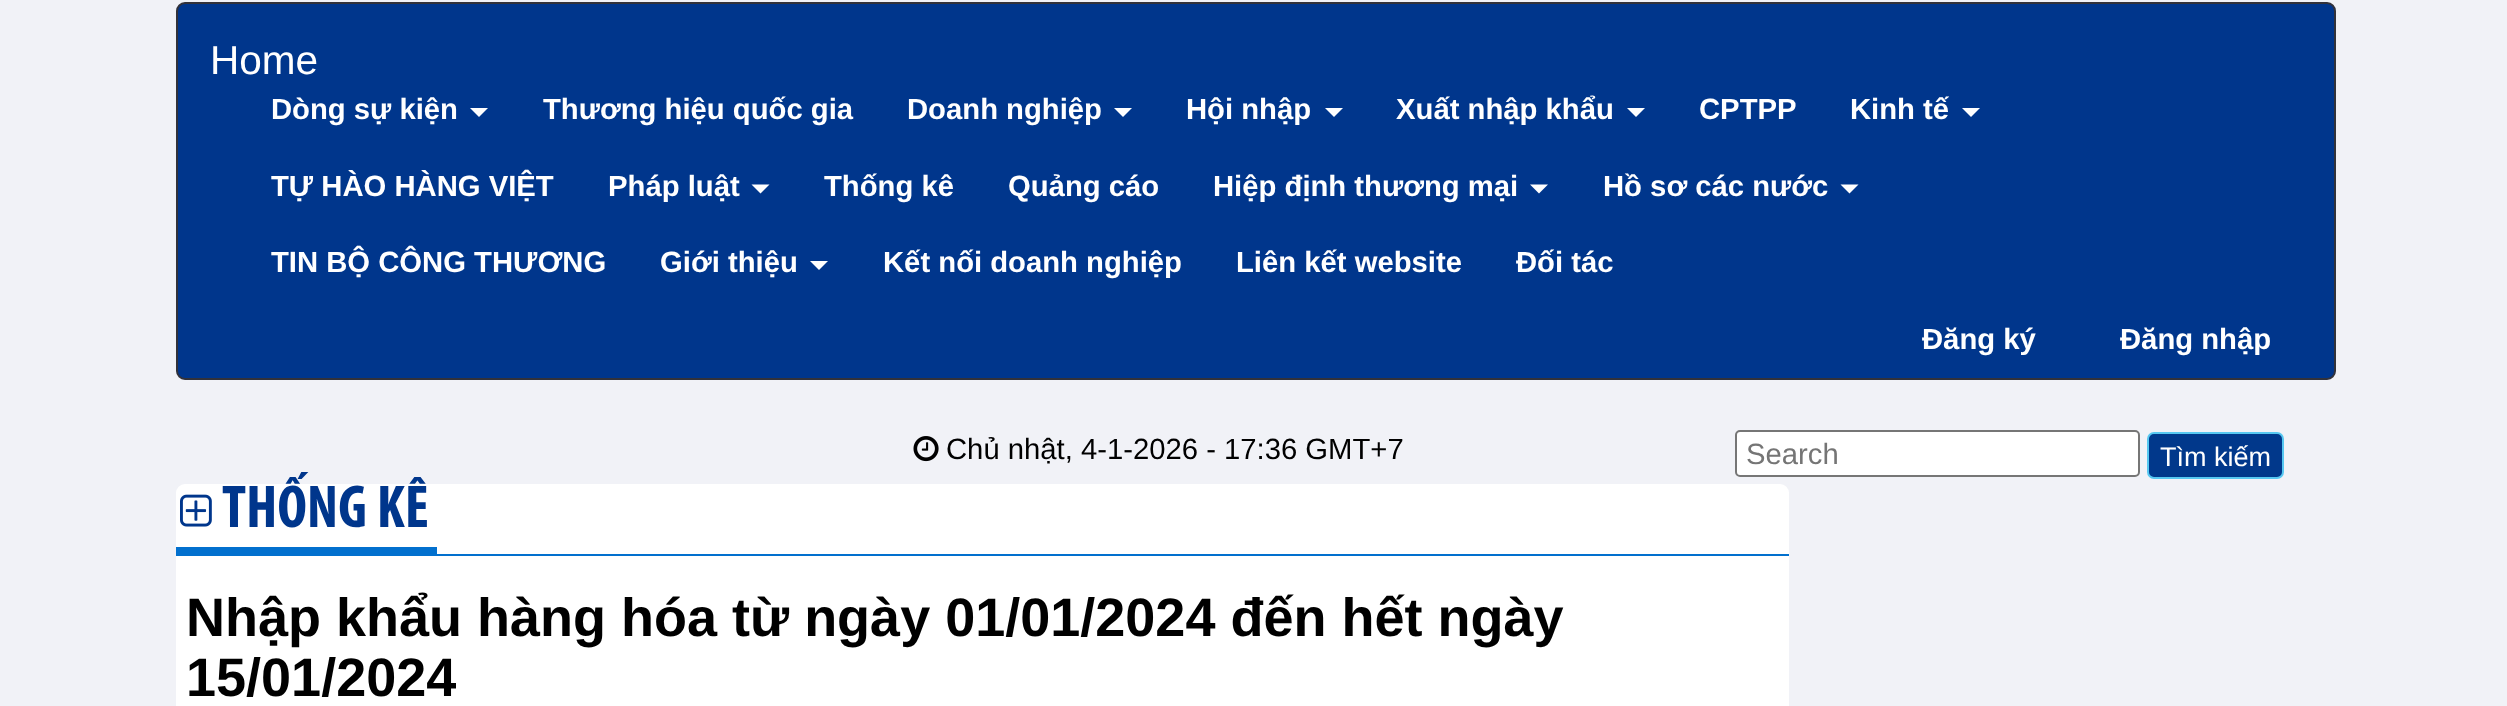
<svg xmlns="http://www.w3.org/2000/svg" width="2507" height="706">
<rect width="100%" height="100%" fill="#f1f2f7"/>
<rect x="177" y="3" width="2158" height="376" rx="8" fill="#00368c" stroke="#32323a" stroke-width="2"/>
<text x="210" y="74" style="font-family:Liberation Sans;font-size:40.5px;fill:#fff">Home</text>
<text x="271" y="119" style="font-family:Liberation Sans;font-size:29.25px;font-weight:bold;fill:#fff">Dòng sự kiện</text>
<path d="M470 108h18l-9 9z" fill="#fff"/>
<text x="543" y="119" style="font-family:Liberation Sans;font-size:29.25px;font-weight:bold;fill:#fff">Thương hiệu quốc gia</text>
<text x="907" y="119" style="font-family:Liberation Sans;font-size:29.25px;font-weight:bold;fill:#fff">Doanh nghiệp</text>
<path d="M1114 108h18l-9 9z" fill="#fff"/>
<text x="1186" y="119" style="font-family:Liberation Sans;font-size:29.25px;font-weight:bold;fill:#fff">Hội nhập</text>
<path d="M1325 108h18l-9 9z" fill="#fff"/>
<text x="1396" y="119" style="font-family:Liberation Sans;font-size:29.25px;font-weight:bold;fill:#fff">Xuất nhập khẩu</text>
<path d="M1627 108h18l-9 9z" fill="#fff"/>
<text x="1699" y="119" style="font-family:Liberation Sans;font-size:29.25px;font-weight:bold;fill:#fff">CPTPP</text>
<text x="1850" y="119" style="font-family:Liberation Sans;font-size:29.25px;font-weight:bold;fill:#fff">Kinh tế</text>
<path d="M1962 108h18l-9 9z" fill="#fff"/>
<text x="271" y="196" style="font-family:Liberation Sans;font-size:29.25px;font-weight:bold;fill:#fff">TỰ HÀO HÀNG VIỆT</text>
<text x="608" y="196" style="font-family:Liberation Sans;font-size:29.25px;font-weight:bold;fill:#fff">Pháp luật</text>
<path d="M751.5 184.5h18l-9 9z" fill="#fff"/>
<text x="824" y="196" style="font-family:Liberation Sans;font-size:29.25px;font-weight:bold;fill:#fff">Thống kê</text>
<text x="1008" y="196" style="font-family:Liberation Sans;font-size:29.25px;font-weight:bold;fill:#fff">Quảng cáo</text>
<text x="1213" y="196" style="font-family:Liberation Sans;font-size:29.25px;font-weight:bold;fill:#fff">Hiệp định thương mại</text>
<path d="M1530 184.5h18l-9 9z" fill="#fff"/>
<text x="1603" y="196" style="font-family:Liberation Sans;font-size:29.25px;font-weight:bold;fill:#fff">Hồ sơ các nước</text>
<path d="M1840.5 184.5h18l-9 9z" fill="#fff"/>
<text x="271" y="272" style="font-family:Liberation Sans;font-size:29.25px;font-weight:bold;fill:#fff">TIN BỘ CÔNG THƯƠNG</text>
<text x="660" y="272" style="font-family:Liberation Sans;font-size:29.25px;font-weight:bold;fill:#fff">Giới thiệu</text>
<path d="M810 261h18l-9 9z" fill="#fff"/>
<text x="883" y="272" style="font-family:Liberation Sans;font-size:29.25px;font-weight:bold;fill:#fff">Kết nối doanh nghiệp</text>
<text x="1236" y="272" style="font-family:Liberation Sans;font-size:29.25px;font-weight:bold;fill:#fff">Liên kết website</text>
<text x="1516" y="272" style="font-family:Liberation Sans;font-size:29.25px;font-weight:bold;fill:#fff">Đối tác</text>
<text x="1922" y="349" style="font-family:Liberation Sans;font-size:29.25px;font-weight:bold;fill:#fff">Đăng ký</text>
<text x="2120" y="349" style="font-family:Liberation Sans;font-size:29.25px;font-weight:bold;fill:#fff">Đăng nhập</text>
<image x="913" y="436" width="26" height="26" href="media/1.png"/>
<text x="946" y="459" style="font-family:Liberation Sans;font-size:29.25px;fill:#000">Chủ nhật, 4-1-2026 - 17:36 GMT+7</text>
<rect x="1736" y="431" width="403" height="45" rx="4" fill="#fff" stroke="#767676" stroke-width="2"/>
<text x="1746" y="464" style="font-family:Liberation Sans;font-size:29.25px;fill:#757575">Search</text>
<rect x="2148" y="433" width="135" height="45" rx="6" fill="#01388b" stroke="#57c8f1" stroke-width="2"/>
<text x="2160" y="466" style="font-family:Liberation Sans;font-size:27px;fill:#fff">Tìm kiếm</text>
<rect x="176" y="484" width="1613" height="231" rx="9" fill="#fff"/>
<rect x="176" y="554" width="1613" height="2" fill="#0270ce"/>
<rect x="176" y="547" width="261" height="7" fill="#0270ce"/>
<image x="180" y="494" width="32" height="33" href="media/2.png"/>
<text x="222" y="527" style="font-family:Myriad;font-size:61px;font-weight:bold;fill:#00368c">THỐNG KÊ</text>
<text x="186" y="636" style="font-family:Liberation Sans;font-size:54px;font-weight:bold;fill:#000">Nhập khẩu hàng hóa từ ngày 01/01/2024 đến hết ngày</text>
<text x="186" y="696" style="font-family:Liberation Sans;font-size:54px;font-weight:bold;fill:#000">15/01/2024</text>
</svg>
